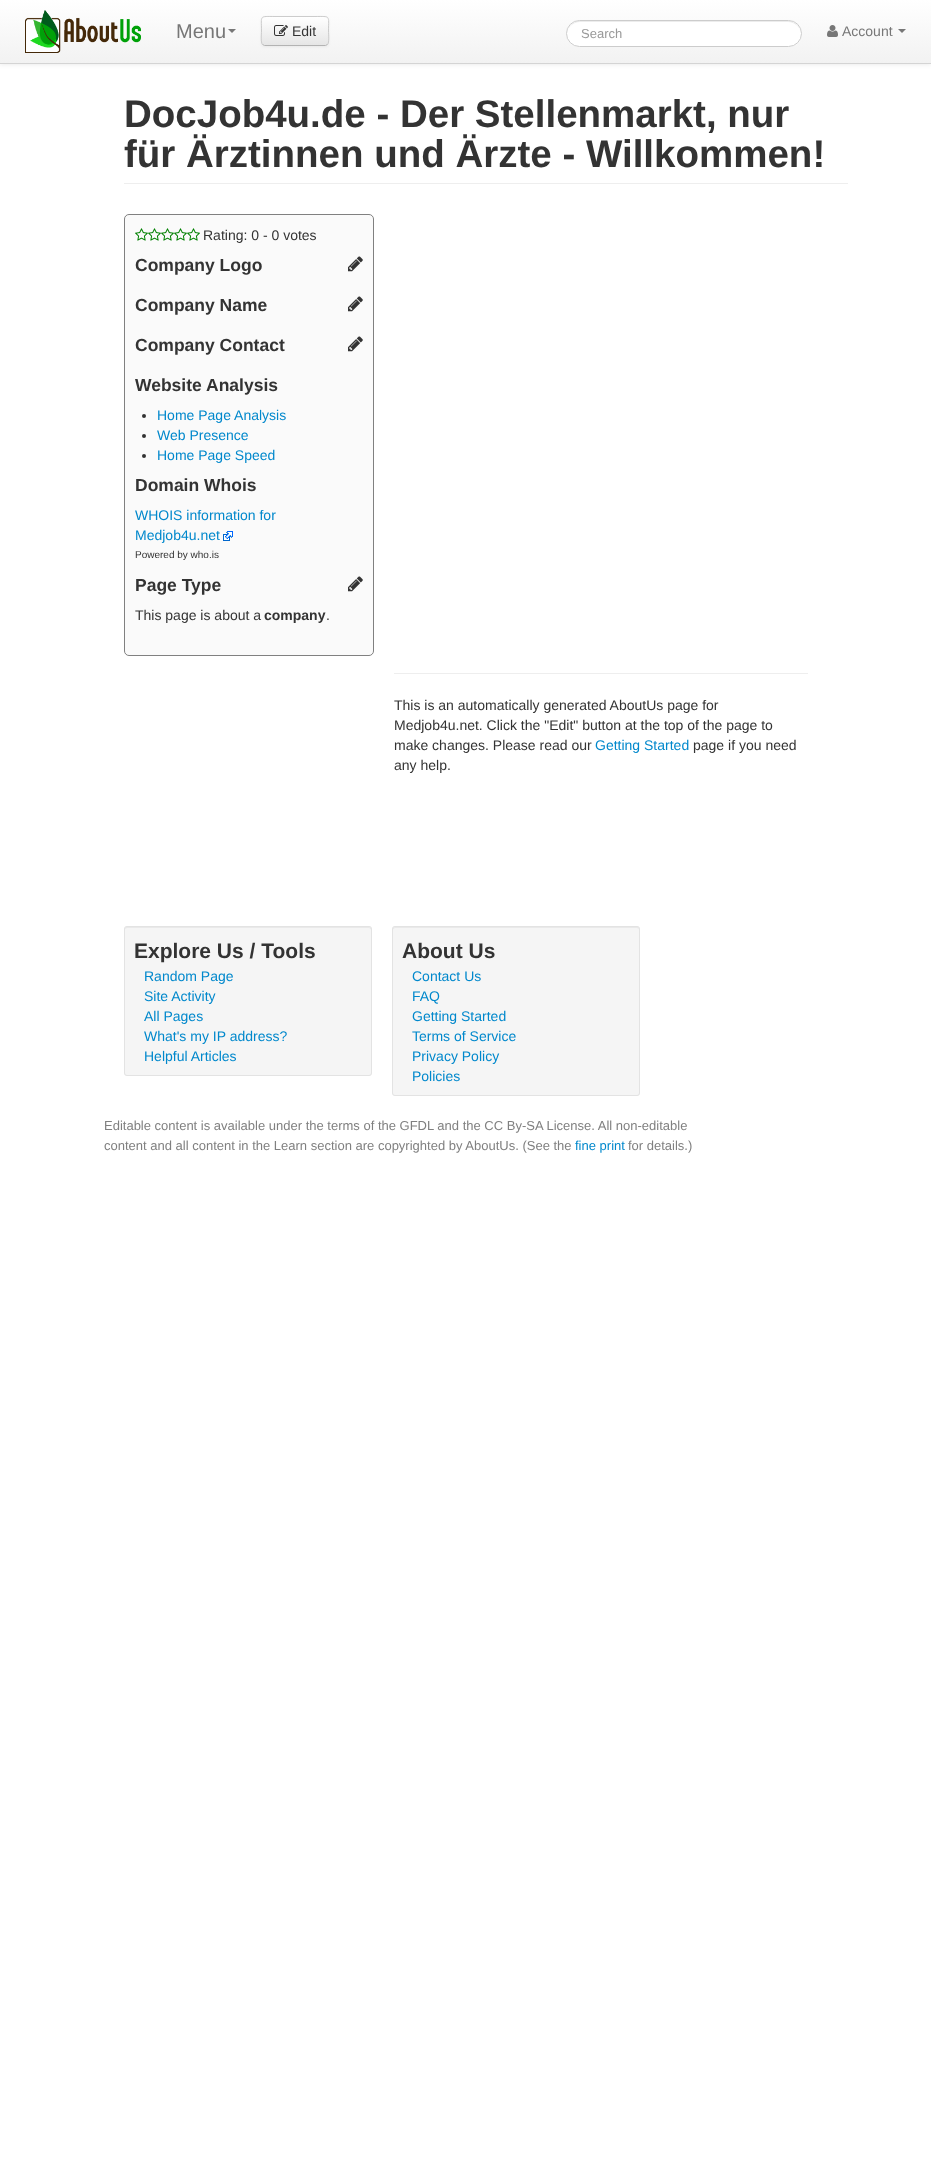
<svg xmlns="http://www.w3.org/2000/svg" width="931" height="2172">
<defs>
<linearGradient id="g1" gradientUnits="userSpaceOnUse" x1="466" y1="0" x2="466" y2="63"><stop offset="0" stop-color="#fff"/><stop offset="1" stop-color="#f2f2f2"/></linearGradient>
<clipPath id="clip1"><rect x="261" y="16" width="68" height="30" rx="4"/></clipPath>
<linearGradient id="g2" gradientUnits="userSpaceOnUse" x1="295" y1="17" x2="295" y2="45"><stop offset="0" stop-color="#fff"/><stop offset="1" stop-color="#e6e6e6"/></linearGradient>
</defs>
<rect width="100%" height="100%" fill="#fff"/>
<rect y="1" width="931" height="64" fill="#00000012" filter="blur(2px)"/>
<rect width="931" height="63" fill="url(#g1)"/>
<rect y="63" width="931" height="1" fill="#d4d4d4"/>
<image x="25" y="10" width="116" height="43" href="media/1.png"/>
<text x="176" y="38" style="font-family:Liberation Sans;font-size:20px;fill:#777">Menu</text>
<path d="M228 29h8l-4 4z" fill="#777"/>
<rect x="261" y="17" width="68" height="30" rx="4" fill="#0000000d" filter="blur(1px)"/>
<rect x="261" y="16" width="68" height="30" rx="4" fill="#f5f5f5"/>
<g clip-path="url(#clip1)">
<rect x="261" y="17" width="68" height="28" fill="url(#g2)"/>
</g>
<path d="M327.5 44.5l-2 1h-61l-2-1" fill="none" stroke="#b3b3b3"/>
<path d="M262.5 44.5c-2-2-1-10.5-1-13.5c0-16-2.5-14.5 13.5-14.5h40c16 0 13.5-1.5 13.5 14.5c0 3 1 11.5-1 13.5" fill="none" stroke="#ccc"/>
<image x="274" y="25" width="14" height="11" href="media/2.png"/>
<text x="292" y="36" style="font-family:Liberation Sans;font-size:14px;fill:#333">Edit</text>
<rect x="566" y="20" width="236" height="27" rx="13.5" fill="#fff"/>
<path d="M580 22h208c7 0 13 6 13 12c0-7-6-13-13-13h-208c-7 0-13 6-13 13c0-6 6-12 13-12z" fill="#ececec"/>
<rect x="566.5" y="20.5" width="235" height="26" rx="13" fill="none" stroke="#ccc"/>
<text x="581" y="38" style="font-family:Liberation Sans;font-size:13px;fill:#999">Search</text>
<image x="827" y="25" width="11" height="12" href="media/3.png"/>
<text x="842" y="36" style="font-family:Liberation Sans;font-size:14px;fill:#777">Account</text>
<path d="M898 29h8l-4 4z" fill="#777"/>
<rect x="124" y="183" width="724" height="1" fill="#eee"/>
<text x="124" y="127" style="font-family:Liberation Sans;font-size:38.5px;font-weight:bold;fill:#333">DocJob4u.de - Der Stellenmarkt, nur</text>
<text x="124" y="167" style="font-family:Liberation Sans;font-size:38.5px;font-weight:bold;fill:#333">für Ärztinnen und Ärzte - Willkommen!</text>
<rect x="124.5" y="214.5" width="249" height="441" rx="4.5" fill="#fafafa" stroke="#808080"/>
<image x="135" y="228" width="13" height="13" href="media/4.png"/>
<image x="148" y="228" width="13" height="13" href="media/4.png"/>
<image x="161" y="228" width="13" height="13" href="media/4.png"/>
<image x="174" y="228" width="13" height="13" href="media/4.png"/>
<image x="187" y="228" width="13" height="13" href="media/4.png"/>
<text x="203" y="240" style="font-family:Liberation Sans;font-size:14px;fill:#333">Rating: 0 - 0 votes</text>
<text x="135" y="271" style="font-family:Liberation Sans;font-size:17.5px;font-weight:bold;fill:#333">Company Logo</text>
<image x="348" y="256" width="15" height="16" href="media/5.png"/>
<text x="135" y="311" style="font-family:Liberation Sans;font-size:17.5px;font-weight:bold;fill:#333">Company Name</text>
<image x="348" y="296" width="15" height="16" href="media/5.png"/>
<text x="135" y="351" style="font-family:Liberation Sans;font-size:17.5px;font-weight:bold;fill:#333">Company Contact</text>
<image x="348" y="336" width="15" height="16" href="media/5.png"/>
<text x="135" y="391" style="font-family:Liberation Sans;font-size:17.5px;font-weight:bold;fill:#333">Website Analysis</text>
<circle cx="144" cy="416" r="2" fill="#333"/>
<text x="157" y="420" style="font-family:Liberation Sans;font-size:14px;fill:#08c">Home Page Analysis</text>
<circle cx="144" cy="436" r="2" fill="#333"/>
<text x="157" y="440" style="font-family:Liberation Sans;font-size:14px;fill:#08c">Web Presence</text>
<circle cx="144" cy="456" r="2" fill="#333"/>
<text x="157" y="460" style="font-family:Liberation Sans;font-size:14px;fill:#08c">Home Page Speed</text>
<text x="135" y="491" style="font-family:Liberation Sans;font-size:17.5px;font-weight:bold;fill:#333">Domain Whois</text>
<text x="135" y="520" style="font-family:Liberation Sans;font-size:14px;fill:#08c">WHOIS information for</text>
<text x="135" y="540" style="font-family:Liberation Sans;font-size:14px;fill:#08c">Medjob4u.net</text>
<image x="223" y="531" width="10" height="10" href="media/6.png"/>
<text x="135" y="558" style="font-family:Liberation Sans;font-size:10px;fill:#333">Powered by who.is</text>
<text x="135" y="591" style="font-family:Liberation Sans;font-size:17.5px;font-weight:bold;fill:#333">Page Type</text>
<image x="348" y="576" width="15" height="16" href="media/5.png"/>
<text x="135" y="620" style="font-family:Liberation Sans;font-size:14px;fill:#333">This page is about a</text>
<text x="264" y="620" style="font-family:Liberation Sans;font-size:14px;font-weight:bold;fill:#333">company</text>
<text x="326" y="620" style="font-family:Liberation Sans;font-size:14px;fill:#333">.</text>
<rect x="394" y="673" width="414" height="1" fill="#eee"/>
<text x="394" y="710" style="font-family:Liberation Sans;font-size:14px;fill:#333">This is an automatically generated AboutUs page for</text>
<text x="394" y="730" style="font-family:Liberation Sans;font-size:14px;fill:#333">Medjob4u.net. Click the "Edit" button at the top of the page to</text>
<text x="394" y="750" style="font-family:Liberation Sans;font-size:14px;fill:#333">make changes. Please read our</text>
<text x="595" y="750" style="font-family:Liberation Sans;font-size:14px;fill:#08c">Getting Started</text>
<text x="693" y="750" style="font-family:Liberation Sans;font-size:14px;fill:#333">page if you need</text>
<text x="394" y="770" style="font-family:Liberation Sans;font-size:14px;fill:#333">any help.</text>
<rect x="124" y="926" width="248" height="150" rx="3" fill="#f5f5f5"/>
<path d="M127 928h242c1 0 2 1 2 2v-2l-2-1h-242c-2 0-2 2-2 3c0-1 1-2 2-2z" fill="#e9e9e9"/>
<rect x="124.5" y="926.5" width="247" height="149" rx="2.5" fill="none" stroke="#e3e3e3"/>
<text x="134" y="958" style="font-family:Liberation Sans;font-size:21px;font-weight:bold;fill:#333">Explore Us / Tools</text>
<text x="144" y="981" style="font-family:Liberation Sans;font-size:14px;fill:#08c">Random Page</text>
<text x="144" y="1001" style="font-family:Liberation Sans;font-size:14px;fill:#08c">Site Activity</text>
<text x="144" y="1021" style="font-family:Liberation Sans;font-size:14px;fill:#08c">All Pages</text>
<text x="144" y="1041" style="font-family:Liberation Sans;font-size:14px;fill:#08c">What's my IP address?</text>
<text x="144" y="1061" style="font-family:Liberation Sans;font-size:14px;fill:#08c">Helpful Articles</text>
<rect x="392" y="926" width="248" height="170" rx="3" fill="#f5f5f5"/>
<path d="M395 928h242c1 0 2 1 2 2c0-1 0-3-2-3h-242l-2 1v2c0-1 1-2 2-2z" fill="#e9e9e9"/>
<rect x="392.5" y="926.5" width="247" height="169" rx="2.5" fill="none" stroke="#e3e3e3"/>
<text x="402" y="958" style="font-family:Liberation Sans;font-size:21px;font-weight:bold;fill:#333">About Us</text>
<text x="412" y="981" style="font-family:Liberation Sans;font-size:14px;fill:#08c">Contact Us</text>
<text x="412" y="1001" style="font-family:Liberation Sans;font-size:14px;fill:#08c">FAQ</text>
<text x="412" y="1021" style="font-family:Liberation Sans;font-size:14px;fill:#08c">Getting Started</text>
<text x="412" y="1041" style="font-family:Liberation Sans;font-size:14px;fill:#08c">Terms of Service</text>
<text x="412" y="1061" style="font-family:Liberation Sans;font-size:14px;fill:#08c">Privacy Policy</text>
<text x="412" y="1081" style="font-family:Liberation Sans;font-size:14px;fill:#08c">Policies</text>
<text x="104" y="1130" style="font-family:Liberation Sans;font-size:13px;fill:#808080">Editable content is available under the terms of the GFDL and the CC By-SA License. All non-editable</text>
<text x="104" y="1150" style="font-family:Liberation Sans;font-size:13px;fill:#808080">content and all content in the Learn section are copyrighted by AboutUs. (See the</text>
<text x="575" y="1150" style="font-family:Liberation Sans;font-size:13px;fill:#08c">fine print</text>
<text x="628" y="1150" style="font-family:Liberation Sans;font-size:13px;fill:#808080">for details.)</text>
</svg>
